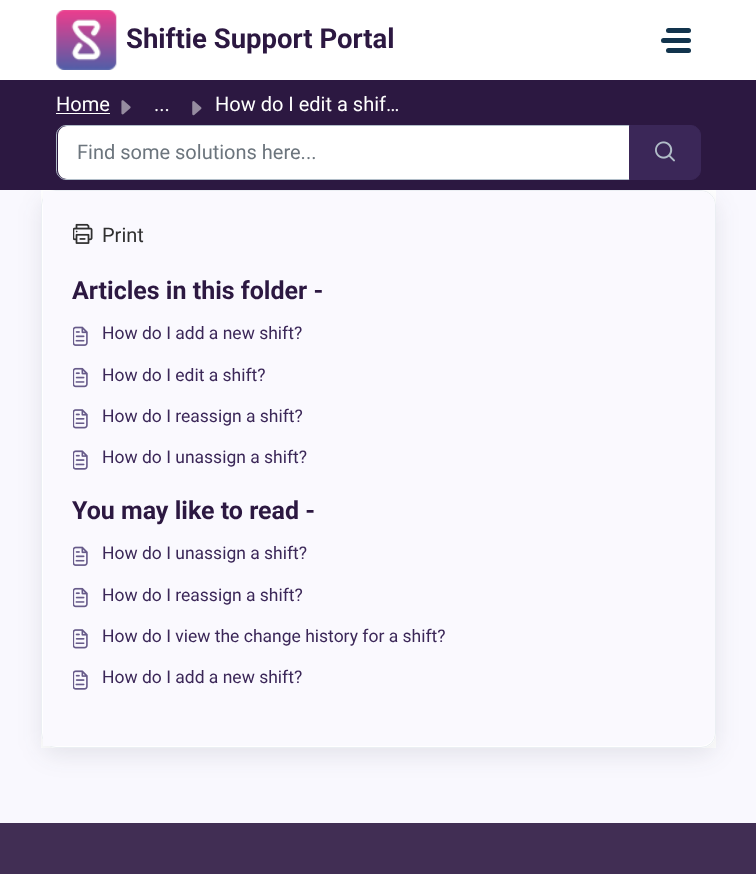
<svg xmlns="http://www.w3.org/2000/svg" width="756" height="874">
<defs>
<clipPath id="clip1"><path d="M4 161h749v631h-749zm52 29h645c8.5 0 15 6.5 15 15v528c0 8.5-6.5 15-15 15h-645c-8.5 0-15-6.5-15-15v-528c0-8.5 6.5-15 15-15z" clip-rule="evenodd"/></clipPath>
</defs>
<rect width="100%" height="100%" fill="#f9f8fe"/>
<rect width="756" height="80" fill="#fff"/>
<image x="56" y="10" width="61" height="60" href="media/1.png"/>
<text x="126" y="48" style="font-family:Roboto;font-size:27.5px;font-weight:bold;fill:#2c1841">Shiftie Support Portal</text>
<rect x="666" y="28" width="25" height="5" rx="2.5" fill="#12344d"/>
<rect x="661" y="38" width="30" height="5" rx="2.5" fill="#12344d"/>
<rect x="666" y="48" width="25" height="5" rx="2.5" fill="#12344d"/>
<rect x="41" y="190" width="675" height="558" fill="#fff"/>
<g clip-path="url(#clip1)">
<rect x="41" y="198" width="675" height="557" rx="15" fill="#27313a1a" filter="blur(12px)"/>
</g>
<rect y="80" width="756" height="110" fill="#2c1841"/>
<text x="56" y="111" style="font-family:Roboto;font-size:20px;fill:#fff">Home</text>
<rect x="56" y="113" width="54" height="1" fill="#fff"/>
<image x="121" y="100" width="10" height="15" href="media/2.png"/>
<text x="154" y="111" style="font-family:Roboto;font-size:20px;fill:#fff">...</text>
<image x="192" y="101" width="10" height="15" href="media/3.png"/>
<text x="215" y="111" style="font-family:Roboto;font-size:20px;fill:#fff">How do I edit a shif…</text>
<path d="M67 126h562v53h-562c-5 0-9-4-9-9v-35c0-5 4-9 9-9z" fill="#fff"/>
<path d="M66 125.5h563.5v54h-563.5c-5 0-9.5-4.5-9.5-9.5v-35c0-5 4.5-9.5 9.5-9.5z" fill="none" stroke="#b1bdc8"/>
<text x="77" y="159" style="font-family:Roboto;font-size:20px;fill:#6c757d">Find some solutions here...</text>
<path d="M629.5 125.5h61.5c5 0 9.5 4.5 9.5 9.5v35c0 5-4.5 9.5-9.5 9.5h-61.5z" fill="#3b2758" stroke="#3b2758"/>
<image x="655" y="141" width="20" height="21" href="media/4.png"/>
<rect x="41.5" y="190.5" width="674" height="557" rx="14.5" fill="none" stroke="#ebeff3"/>
<path d="M43 191h657c8.5 0 15 6.5 15 15v525c0 8.5-6.5 15-15 15h-657z" fill="#faf9fe"/>
<image x="73" y="223" width="20" height="21" href="media/5.png"/>
<text x="102" y="242" style="font-family:Roboto;font-size:20px;fill:#303030">Print</text>
<text x="72" y="299" style="font-family:Roboto;font-size:25px;font-weight:bold;fill:#2c1841">Articles in this folder -</text>
<image x="73" y="326" width="15" height="20" href="media/6.png"/>
<text x="102" y="339" style="font-family:Roboto;font-size:17.5px;fill:#3b2758">How do I add a new shift?</text>
<image x="73" y="367" width="15" height="21" href="media/7.png"/>
<text x="102" y="381" style="font-family:Roboto;font-size:17.5px;fill:#3b2758">How do I edit a shift?</text>
<image x="73" y="409" width="15" height="20" href="media/8.png"/>
<text x="102" y="422" style="font-family:Roboto;font-size:17.5px;fill:#3b2758">How do I reassign a shift?</text>
<image x="73" y="450" width="15" height="20" href="media/9.png"/>
<text x="102" y="463" style="font-family:Roboto;font-size:17.5px;fill:#3b2758">How do I unassign a shift?</text>
<text x="72" y="519" style="font-family:Roboto;font-size:25px;font-weight:bold;fill:#2c1841">You may like to read -</text>
<image x="73" y="546" width="15" height="20" href="media/6.png"/>
<text x="102" y="559" style="font-family:Roboto;font-size:17.5px;fill:#3b2758">How do I unassign a shift?</text>
<image x="73" y="587" width="15" height="21" href="media/7.png"/>
<text x="102" y="601" style="font-family:Roboto;font-size:17.5px;fill:#3b2758">How do I reassign a shift?</text>
<image x="73" y="629" width="15" height="20" href="media/8.png"/>
<text x="102" y="642" style="font-family:Roboto;font-size:17.5px;fill:#3b2758">How do I view the change history for a shift?</text>
<image x="73" y="670" width="15" height="20" href="media/9.png"/>
<text x="102" y="683" style="font-family:Roboto;font-size:17.5px;fill:#3b2758">How do I add a new shift?</text>
<rect y="823" width="756" height="51" fill="#412e54"/>
</svg>
